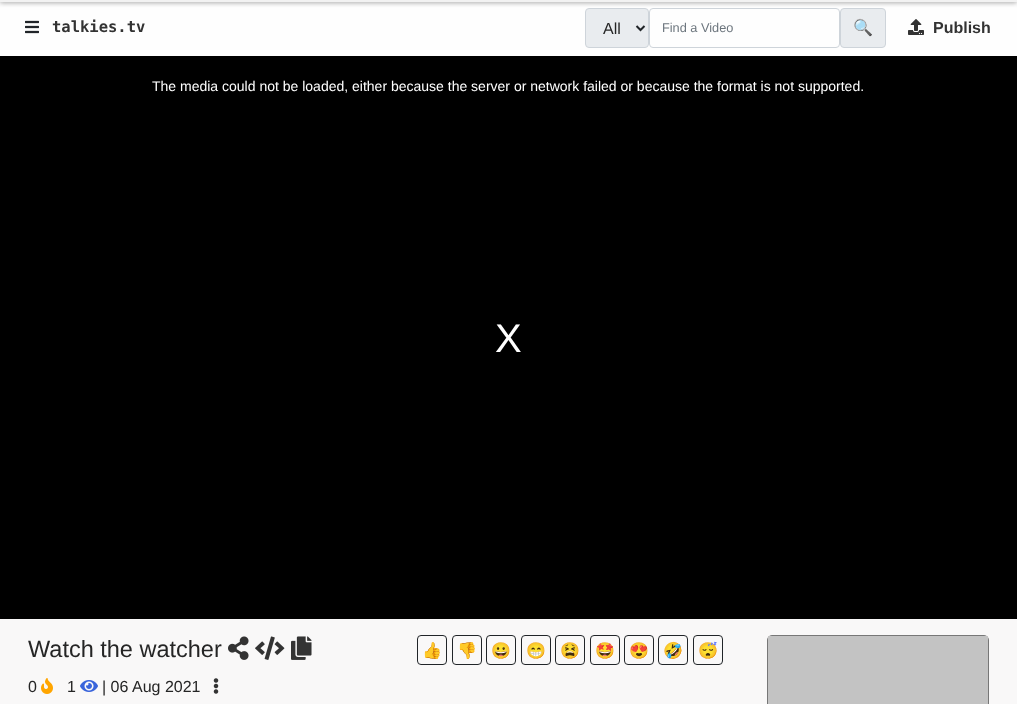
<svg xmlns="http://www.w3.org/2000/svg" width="1017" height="704">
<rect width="100%" height="100%" fill="#fefefe"/>
<rect width="1017" height="2" fill="#4b4b4b" filter="blur(2.5px)"/>
<rect width="1017" height="2" fill="#f2f2f2"/>
<image x="25" y="20" width="14" height="14" href="media/1.png"/>
<text x="52" y="32" style="font-family:DejaVu Sans Mono;font-size:15.5px;font-weight:bold;fill:#333">talkies.tv</text>
<rect x="585.5" y="8.5" width="63" height="39" rx="3.5" fill="#e9ecef" stroke="#ced4da"/>
<path d="M636.5 26l4 4l4-4" fill="none" stroke="#212529" stroke-width="2"/>
<text x="603" y="34" style="font-family:Liberation Sans;font-size:16px;fill:#252525">All</text>
<rect x="649.5" y="8.5" width="190" height="39" rx="3.5" fill="none" stroke="#ced4da"/>
<text x="662" y="32" style="font-family:Liberation Sans;font-size:12.75px;fill:#6c757d">Find a Video</text>
<rect x="840.5" y="8.5" width="45" height="39" rx="3.5" fill="#e9ecef" stroke="#ced4da"/>
<text x="853" y="33" style="font-family:Noto Color Emoji;font-size:16px;fill:#252525">🔍</text>
<image x="908" y="19" width="16" height="16" href="media/2.png"/>
<text x="933" y="33" style="font-family:Liberation Sans;font-size:16px;font-weight:bold;fill:#333">Publish</text>
<rect y="619" width="1017" height="85" fill="#f9f8f8"/>
<rect y="56" width="1017" height="563" fill="#000"/>
<text x="152" y="91" style="font-family:Liberation Sans;font-size:14px;fill:#fff">The media could not be loaded, either because the server or network failed or because the format is not supported.</text>
<text x="495" y="352" style="font-family:Liberation Sans;font-size:40px;fill:#fff">X</text>
<text x="28" y="657" style="font-family:Liberation Sans;font-size:23.5px;fill:#252525">Watch the watcher</text>
<image x="228" y="636" width="21" height="24" href="media/3.png"/>
<image x="255" y="636" width="30" height="24" href="media/4.png"/>
<image x="291" y="636" width="21" height="24" href="media/5.png"/>
<text x="28" y="692" style="font-family:Liberation Sans;font-size:16px;fill:#252525">0</text>
<image x="41" y="678" width="12" height="16" href="media/6.png"/>
<text x="67" y="692" style="font-family:Liberation Sans;font-size:16px;fill:#252525">1</text>
<image x="80" y="680" width="18" height="12" href="media/7.png"/>
<text x="102" y="692" style="font-family:Liberation Sans;font-size:16px;fill:#252525">| 06 Aug 2021</text>
<image x="213" y="678" width="6" height="16" href="media/8.png"/>
<rect x="417.5" y="635.5" width="29" height="29" rx="3.5" fill="none" stroke="#212529"/>
<text x="422" y="656" style="font-family:Noto Color Emoji;font-size:16px;fill:#000">👍</text>
<rect x="452.5" y="635.5" width="29" height="29" rx="3.5" fill="none" stroke="#212529"/>
<text x="457" y="656" style="font-family:Noto Color Emoji;font-size:16px;fill:#000">👎</text>
<rect x="486.5" y="635.5" width="29" height="29" rx="3.5" fill="none" stroke="#212529"/>
<text x="491" y="656" style="font-family:Noto Color Emoji;font-size:16px;fill:#000">😀</text>
<rect x="521.5" y="635.5" width="29" height="29" rx="3.5" fill="none" stroke="#212529"/>
<text x="526" y="656" style="font-family:Noto Color Emoji;font-size:16px;fill:#000">😁</text>
<rect x="555.5" y="635.5" width="29" height="29" rx="3.5" fill="none" stroke="#212529"/>
<text x="560" y="656" style="font-family:Noto Color Emoji;font-size:16px;fill:#000">😫</text>
<rect x="590.5" y="635.5" width="29" height="29" rx="3.5" fill="none" stroke="#212529"/>
<text x="595" y="656" style="font-family:Noto Color Emoji;font-size:16px;fill:#000">🤩</text>
<rect x="624.5" y="635.5" width="29" height="29" rx="3.5" fill="none" stroke="#212529"/>
<text x="629" y="656" style="font-family:Noto Color Emoji;font-size:16px;fill:#000">😍</text>
<rect x="658.5" y="635.5" width="29" height="29" rx="3.5" fill="none" stroke="#212529"/>
<text x="663" y="656" style="font-family:Noto Color Emoji;font-size:16px;fill:#000">🤣</text>
<rect x="693.5" y="635.5" width="29" height="29" rx="3.5" fill="none" stroke="#212529"/>
<text x="698" y="656" style="font-family:Noto Color Emoji;font-size:16px;fill:#000">😴</text>
<rect x="767.5" y="635.5" width="221" height="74" rx="4.5" fill="none" stroke="#777"/>
<rect x="768" y="636" width="220" height="68" fill="#c3c3c3"/>
</svg>
